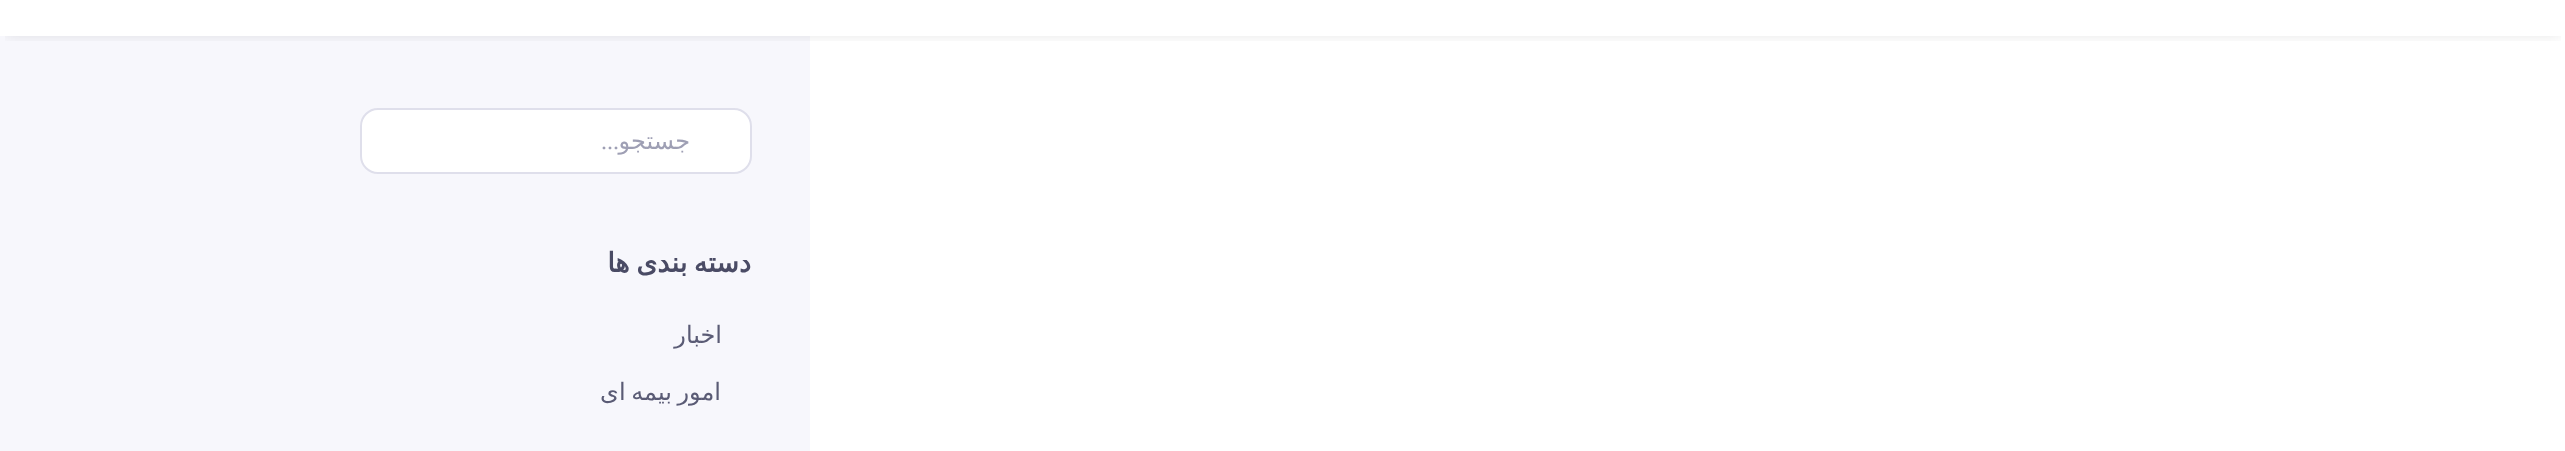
<svg xmlns="http://www.w3.org/2000/svg" width="2565" height="451">
<defs>
<clipPath id="clip1"><rect x="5" y="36" width="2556" height="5"/></clipPath>
</defs>
<rect width="100%" height="100%" fill="#fff"/>
<rect y="36" width="810" height="415" fill="#f7f7fc"/>
<g clip-path="url(#clip1)">
<rect x="5" y="8" width="2556" height="27" fill="#0000001a" filter="blur(7.5px)"/>
</g>
<rect x="361" y="109" width="390" height="64" rx="17" fill="#fff" stroke="#dfdfeb" stroke-width="2"/>
<text x="619" y="149" style="font-family:Liberation Serif;font-size:24px;direction:rtl;fill:#9e9fb4">...</text>
<text x="690" y="149" style="font-family:DejaVu Sans;font-size:24px;direction:rtl;fill:#9e9fb4">جستجو</text>
<text x="751" y="272" word-spacing="-2" style="font-family:DejaVu Sans;font-size:27px;font-weight:bold;direction:rtl;fill:#4a4b65">دسته بندی ها</text>
<text x="722" y="343" style="font-family:DejaVu Sans;font-size:24px;direction:rtl;fill:#5a5b75">اخبار</text>
<text x="721" y="400" word-spacing="-2" style="font-family:DejaVu Sans;font-size:24px;direction:rtl;fill:#5a5b75">امور بیمه ای</text>
</svg>
